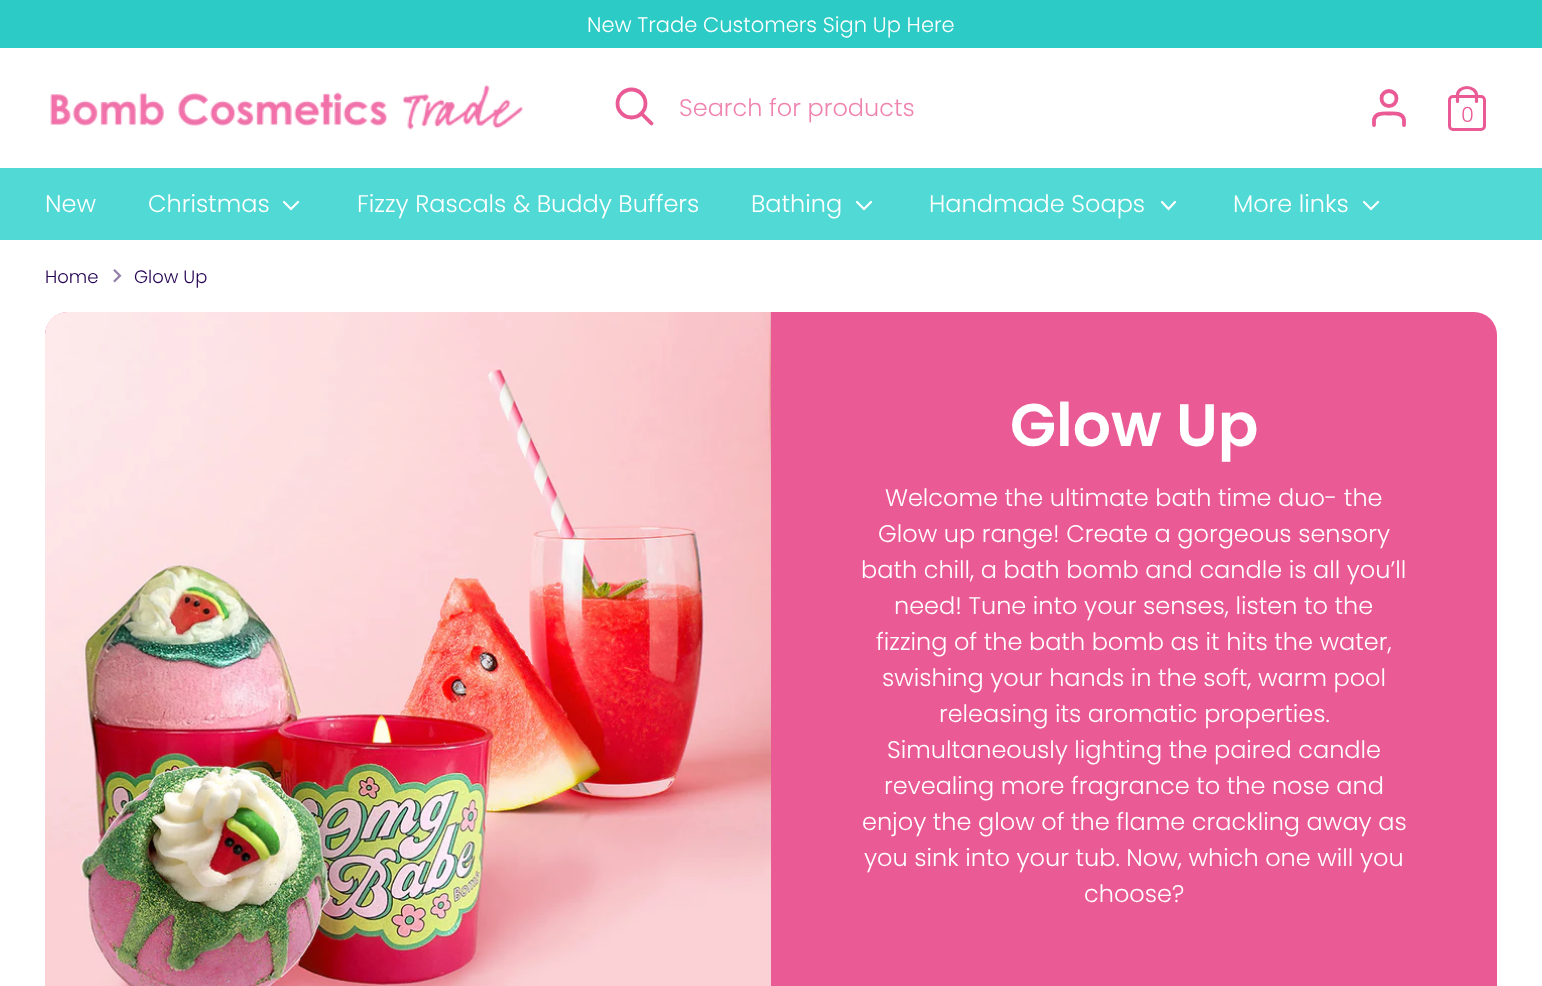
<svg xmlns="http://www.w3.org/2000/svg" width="1542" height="986">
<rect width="100%" height="100%" fill="#fff"/>
<rect width="1542" height="48" fill="#2ccbc6"/>
<text x="587" y="32" style="font-family:Poppins;font-size:21px;font-weight:300;fill:#fff">New Trade Customers Sign Up Here</text>
<image x="50" y="84" width="473" height="46" href="media/1.png"/>
<circle cx="631.5" cy="103.5" r="14" fill="none" stroke="#ea5b96" stroke-width="3.8"/>
<path d="M651.5 123.5l-10-10" fill="none" stroke="#ea5b96" stroke-width="3.8" stroke-linecap="round"/>
<text x="679" y="116" style="font-family:Poppins;font-size:24px;font-weight:300;fill:#ef84b0">Search for products</text>
<path d="M1404 125v-5.5c-1.5-7-9.5-6-15-6c-5.5 0-13.5-1-15 6v5.5" fill="none" stroke="#ea5b96" stroke-width="3.8" stroke-linecap="round"/>
<circle cx="1389" cy="98.5" r="7.5" fill="none" stroke="#ea5b96" stroke-width="3.8"/>
<rect x="1449.5" y="96.5" width="35" height="33" rx="3.5" fill="none" stroke="#ea5b96" stroke-width="3"/>
<path d="M1457.5 101.5v-6.5c0-4 4-7.5 9.5-7.5c5 0 9.5 3.5 9.5 7.5v6.5" fill="none" stroke="#ea5b96" stroke-width="3.2" stroke-linecap="round"/>
<text x="1461" y="122" style="font-family:Poppins;font-size:21px;font-weight:300;fill:#ea5b96">0</text>
<rect y="168" width="1542" height="72" fill="#51d9d5"/>
<text x="45" y="212" style="font-family:Poppins;font-size:24px;font-weight:300;fill:#fff">New</text>
<text x="148" y="212" style="font-family:Poppins;font-size:24px;font-weight:300;fill:#fff">Christmas</text>
<path d="M284 202l7 7l7-7" fill="none" stroke="#fff" stroke-width="2.2" stroke-linecap="round"/>
<text x="357" y="212" style="font-family:Poppins;font-size:24px;font-weight:300;fill:#fff">Fizzy Rascals &amp; Buddy Buffers</text>
<text x="751" y="212" style="font-family:Poppins;font-size:24px;font-weight:300;fill:#fff">Bathing</text>
<path d="M857 202l7 7l7-7" fill="none" stroke="#fff" stroke-width="2.2" stroke-linecap="round"/>
<text x="929" y="212" style="font-family:Poppins;font-size:24px;font-weight:300;fill:#fff">Handmade Soaps</text>
<path d="M1162 202l6.5 7l6.5-7" fill="none" stroke="#fff" stroke-width="2.2" stroke-linecap="round"/>
<text x="1233" y="212" style="font-family:Poppins;font-size:24px;font-weight:300;fill:#fff">More links</text>
<path d="M1364 202l7 7l7-7" fill="none" stroke="#fff" stroke-width="2.2" stroke-linecap="round"/>
<text x="45" y="283" style="font-family:Poppins;font-size:18px;font-weight:300;fill:#230051">Home</text>
<image x="113" y="269" width="9" height="14" href="media/2.png"/>
<text x="134" y="283" style="font-family:Poppins;font-size:18px;font-weight:300;fill:#230051">Glow Up</text>
<rect x="45" y="312" width="1452" height="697" rx="23" fill="#ea5b96"/>
<image x="45" y="312" width="726" height="674" href="media/3.png"/>
<text x="1010" y="446" style="font-family:Poppins;font-size:60px;font-weight:600;fill:#fff">Glow Up</text>
<text x="885" y="506" style="font-family:Poppins;font-size:24px;font-weight:300;fill:#fff">Welcome the ultimate bath time duo- the</text>
<text x="878" y="542" style="font-family:Poppins;font-size:24px;font-weight:300;fill:#fff">Glow up range! Create a gorgeous sensory</text>
<text x="861" y="578" style="font-family:Poppins;font-size:24px;font-weight:300;fill:#fff">bath chill, a bath bomb and candle is all you’ll</text>
<text x="894" y="614" style="font-family:Poppins;font-size:24px;font-weight:300;fill:#fff">need! Tune into your senses, listen to the</text>
<text x="876" y="650" style="font-family:Poppins;font-size:24px;font-weight:300;fill:#fff">fizzing of the bath bomb as it hits the water,</text>
<text x="882" y="686" style="font-family:Poppins;font-size:24px;font-weight:300;fill:#fff">swishing your hands in the soft, warm pool</text>
<text x="939" y="722" style="font-family:Poppins;font-size:24px;font-weight:300;fill:#fff">releasing its aromatic properties.</text>
<text x="887" y="758" style="font-family:Poppins;font-size:24px;font-weight:300;fill:#fff">Simultaneously lighting the paired candle</text>
<text x="884" y="794" style="font-family:Poppins;font-size:24px;font-weight:300;fill:#fff">revealing more fragrance to the nose and</text>
<text x="862" y="830" style="font-family:Poppins;font-size:24px;font-weight:300;fill:#fff">enjoy the glow of the flame crackling away as</text>
<text x="864" y="866" style="font-family:Poppins;font-size:24px;font-weight:300;fill:#fff">you sink into your tub. Now, which one will you</text>
<text x="1084" y="902" style="font-family:Poppins;font-size:24px;font-weight:300;fill:#fff">choose?</text>
</svg>
